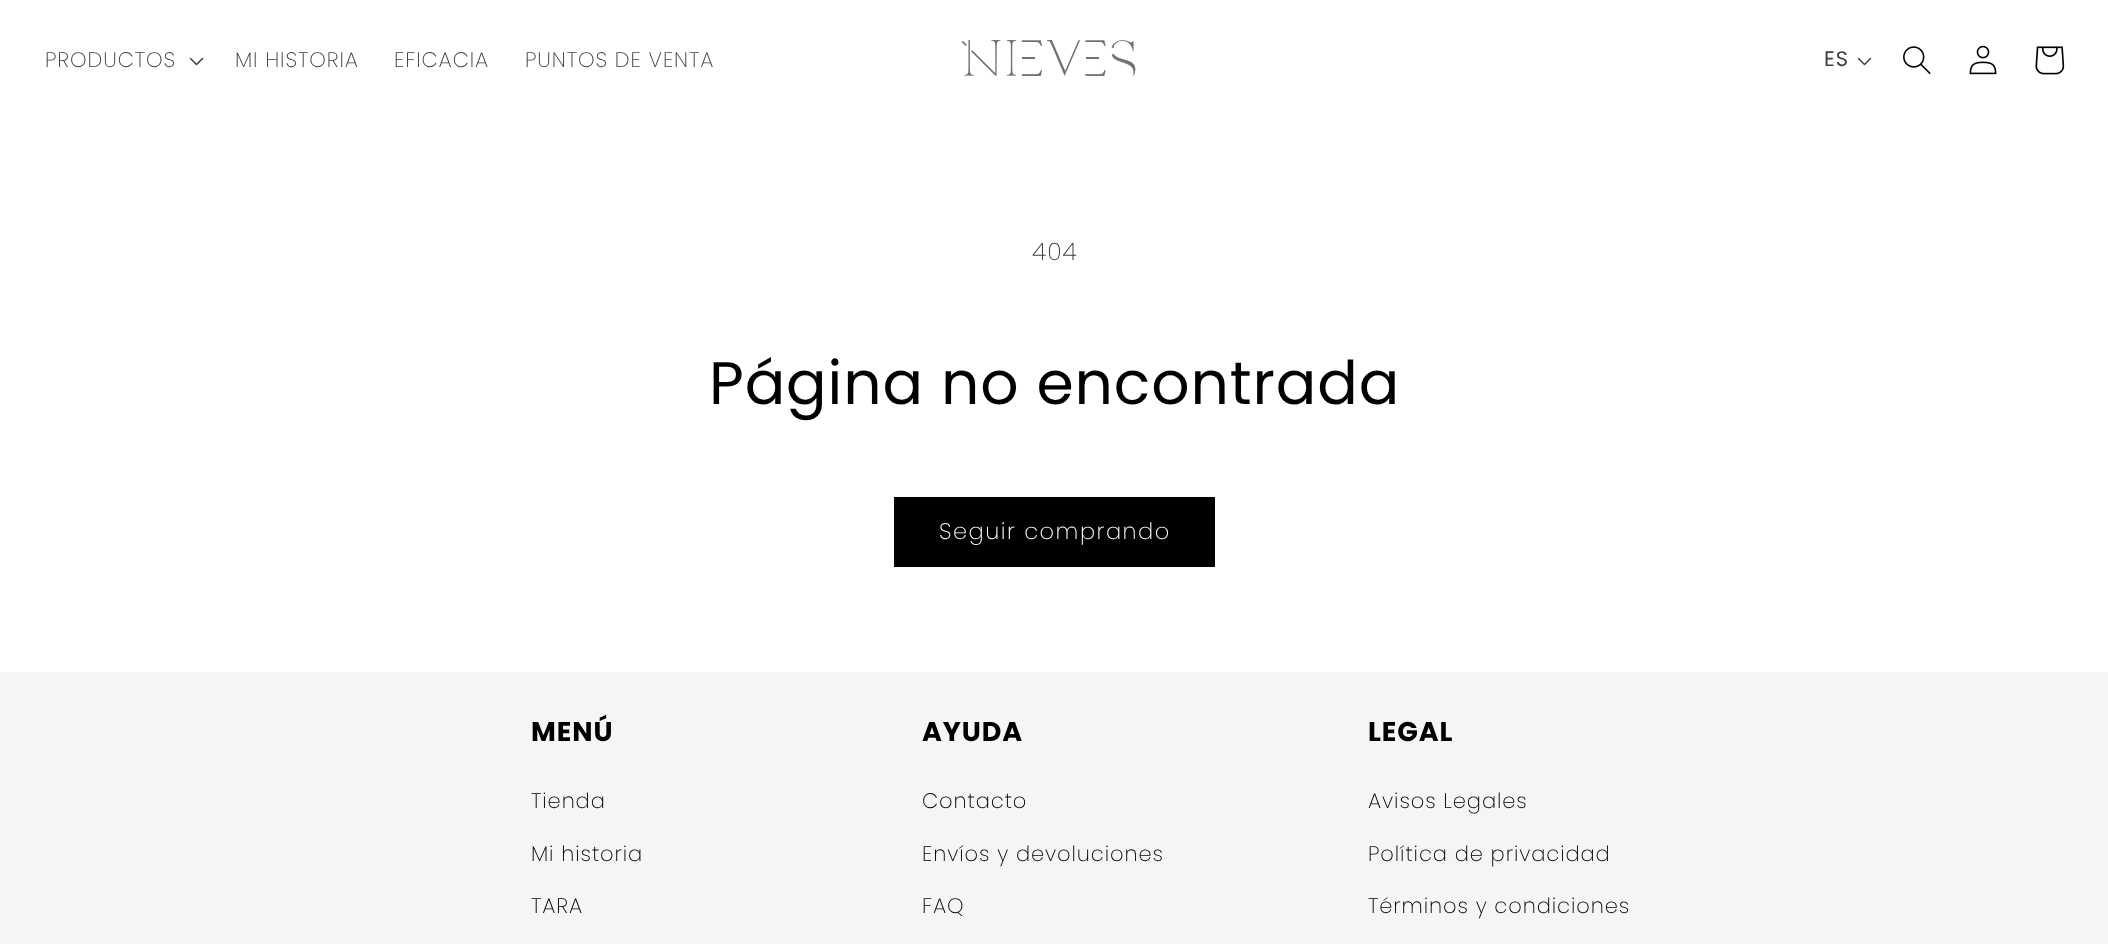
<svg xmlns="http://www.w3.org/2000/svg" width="2108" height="944">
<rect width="100%" height="100%" fill="#fff"/>
<text x="45" y="67" style="font-family:Poppins;font-size:21px;font-weight:200;letter-spacing:0.9px;fill:#404040">PRODUCTOS</text>
<image x="189" y="57" width="15" height="9" href="media/1.png"/>
<text x="235" y="67" style="font-family:Poppins;font-size:21px;font-weight:200;letter-spacing:0.9px;fill:#404040">MI HISTORIA</text>
<text x="394" y="67" style="font-family:Poppins;font-size:21px;font-weight:200;letter-spacing:0.9px;fill:#404040">EFICACIA</text>
<text x="525" y="67" style="font-family:Poppins;font-size:21px;font-weight:200;letter-spacing:0.9px;fill:#404040">PUNTOS DE VENTA</text>
<image x="961" y="40" width="175" height="37" href="media/2.png"/>
<text x="1824" y="66" style="font-family:Poppins;font-size:21px;letter-spacing:1px;fill:#404040">ES</text>
<image x="1857" y="57" width="15" height="9" href="media/1.png"/>
<image x="1903" y="46" width="28" height="28" href="media/3.png"/>
<image x="1969" y="45" width="28" height="30" href="media/4.png"/>
<image x="2035" y="46" width="30" height="29" href="media/5.png"/>
<text x="1032" y="260" style="font-family:Poppins;font-size:24px;font-weight:200;letter-spacing:0.9px;fill:#404040">404</text>
<text x="709" y="404" style="font-family:Poppins;font-size:60px;letter-spacing:0.9px;fill:#000">Página no encontrada</text>
<rect x="894" y="497" width="321" height="70" fill="#000"/>
<text x="939" y="539" style="font-family:Poppins;font-size:22.5px;font-weight:200;letter-spacing:1.5px;fill:#fff">Seguir comprando</text>
<rect y="672" width="2108" height="272" fill="#f5f5f5"/>
<text x="531" y="741" style="font-family:Poppins;font-size:27px;font-weight:bold;letter-spacing:0.9px;fill:#000">MENÚ</text>
<text x="531" y="808" style="font-family:Poppins;font-size:21px;font-weight:200;letter-spacing:0.9px;fill:#000">Tienda</text>
<text x="531" y="861" style="font-family:Poppins;font-size:21px;font-weight:200;letter-spacing:0.9px;fill:#000">Mi historia</text>
<text x="531" y="913" style="font-family:Poppins;font-size:21px;font-weight:200;letter-spacing:0.9px;fill:#000">TARA</text>
<text x="922" y="741" style="font-family:Poppins;font-size:27px;font-weight:bold;letter-spacing:0.9px;fill:#000">AYUDA</text>
<text x="922" y="808" style="font-family:Poppins;font-size:21px;font-weight:200;letter-spacing:0.9px;fill:#000">Contacto</text>
<text x="922" y="861" style="font-family:Poppins;font-size:21px;font-weight:200;letter-spacing:0.9px;fill:#000">Envíos y devoluciones</text>
<text x="922" y="913" style="font-family:Poppins;font-size:21px;font-weight:200;letter-spacing:0.9px;fill:#000">FAQ</text>
<text x="1368" y="741" style="font-family:Poppins;font-size:27px;font-weight:bold;letter-spacing:0.9px;fill:#000">LEGAL</text>
<text x="1368" y="808" style="font-family:Poppins;font-size:21px;font-weight:200;letter-spacing:0.9px;fill:#000">Avisos Legales</text>
<text x="1368" y="861" style="font-family:Poppins;font-size:21px;font-weight:200;letter-spacing:0.9px;fill:#000">Política de privacidad</text>
<text x="1368" y="913" style="font-family:Poppins;font-size:21px;font-weight:200;letter-spacing:0.9px;fill:#000">Términos y condiciones</text>
</svg>
